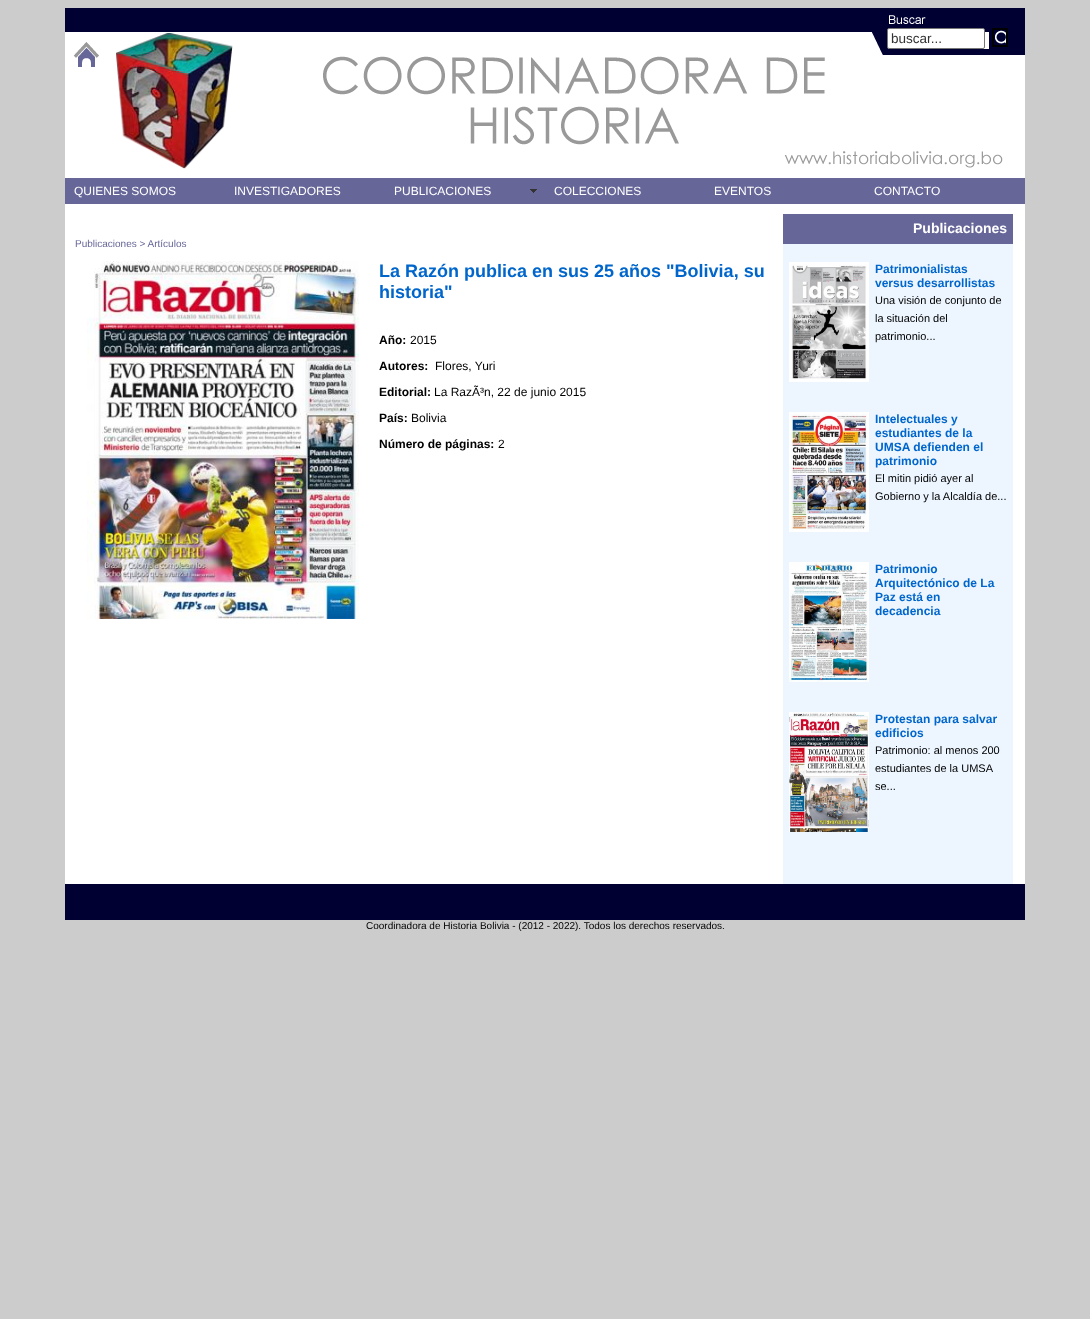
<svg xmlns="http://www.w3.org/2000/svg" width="1090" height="1319">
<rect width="100%" height="100%" fill="#ccc"/>
<rect x="65" y="168" width="960" height="10" fill="#fff"/>
<image x="65" y="8" width="960" height="160" href="media/1.png"/>
<image x="116" y="33" width="117" height="136" href="media/2.png"/>
<rect x="887.5" y="28.5" width="97" height="20" rx="1.5" fill="#fff" stroke="#767676"/>
<text x="891" y="43" style="font-family:Liberation Sans;font-size:13.5px;fill:#333">buscar...</text>
<image x="994" y="30" width="12" height="15" href="media/3.png"/>
<rect x="993" y="29" width="14" height="17" fill="none" stroke="#000" stroke-width="2"/>
<image x="73" y="42" width="26" height="25" href="media/4.png"/>
<rect x="65" y="178" width="960" height="26" fill="#669"/>
<text x="74" y="195" style="font-family:Liberation Sans;font-size:12px;fill:#fff">QUIENES SOMOS</text>
<text x="234" y="195" style="font-family:Liberation Sans;font-size:12px;fill:#fff">INVESTIGADORES</text>
<image x="530" y="189" width="7" height="4" href="media/5.png"/>
<text x="394" y="195" style="font-family:Liberation Sans;font-size:12px;fill:#fff">PUBLICACIONES</text>
<text x="554" y="195" style="font-family:Liberation Sans;font-size:12px;fill:#fff">COLECCIONES</text>
<text x="714" y="195" style="font-family:Liberation Sans;font-size:12px;fill:#fff">EVENTOS</text>
<text x="874" y="195" style="font-family:Liberation Sans;font-size:12px;fill:#fff">CONTACTO</text>
<rect x="65" y="204" width="960" height="680" fill="#fff"/>
<text x="75" y="247" style="font-family:Liberation Sans;font-size:10px;fill:#669">Publicaciones &gt; Artículos</text>
<image x="87" y="261" width="273" height="358" href="media/6.png"/>
<text x="379" y="277" style="font-family:Liberation Sans;font-size:18px;font-weight:bold;fill:#06c">La Razón publica en sus 25 años "Bolivia, su</text>
<text x="379" y="298" style="font-family:Liberation Sans;font-size:18px;font-weight:bold;fill:#06c">historia"</text>
<text x="379" y="344" style="font-family:Liberation Sans;font-size:12px;font-weight:bold;fill:#000">Año:</text>
<text x="410" y="344" style="font-family:Liberation Sans;font-size:12px;fill:#000">2015</text>
<text x="379" y="370" style="font-family:Liberation Sans;font-size:12px;font-weight:bold;fill:#000">Autores:</text>
<text x="435" y="370" style="font-family:Liberation Sans;font-size:12px;fill:#000">Flores, Yuri</text>
<text x="379" y="396" style="font-family:Liberation Sans;font-size:12px;font-weight:bold;fill:#000">Editorial:</text>
<text x="434" y="396" style="font-family:Liberation Sans;font-size:12px;fill:#000">La RazÃ³n, 22 de junio 2015</text>
<text x="379" y="422" style="font-family:Liberation Sans;font-size:12px;font-weight:bold;fill:#000">País:</text>
<text x="411" y="422" style="font-family:Liberation Sans;font-size:12px;fill:#000">Bolivia</text>
<text x="379" y="448" style="font-family:Liberation Sans;font-size:12px;font-weight:bold;fill:#000">Número de páginas:</text>
<text x="498" y="448" style="font-family:Liberation Sans;font-size:12px;fill:#000">2</text>
<rect x="783" y="244" width="230" height="640" fill="#edf6ff"/>
<rect x="783" y="214" width="230" height="30" fill="#669"/>
<text x="913" y="233" style="font-family:Liberation Sans;font-size:14px;font-weight:bold;fill:#fff">Publicaciones</text>
<image x="789" y="262" width="80" height="120" href="media/7.png"/>
<text x="875" y="273" style="font-family:Liberation Sans;font-size:12px;font-weight:bold;fill:#06c">Patrimonialistas</text>
<text x="875" y="287" style="font-family:Liberation Sans;font-size:12px;font-weight:bold;fill:#06c">versus desarrollistas</text>
<text x="875" y="304" style="font-family:Liberation Sans;font-size:11px;fill:#000">Una visión de conjunto de</text>
<text x="875" y="322" style="font-family:Liberation Sans;font-size:11px;fill:#000">la situación del</text>
<text x="875" y="340" style="font-family:Liberation Sans;font-size:11px;fill:#000">patrimonio...</text>
<image x="789" y="412" width="80" height="120" href="media/8.png"/>
<text x="875" y="423" style="font-family:Liberation Sans;font-size:12px;font-weight:bold;fill:#06c">Intelectuales y</text>
<text x="875" y="437" style="font-family:Liberation Sans;font-size:12px;font-weight:bold;fill:#06c">estudiantes de la</text>
<text x="875" y="451" style="font-family:Liberation Sans;font-size:12px;font-weight:bold;fill:#06c">UMSA defienden el</text>
<text x="875" y="465" style="font-family:Liberation Sans;font-size:12px;font-weight:bold;fill:#06c">patrimonio</text>
<text x="875" y="482" style="font-family:Liberation Sans;font-size:11px;fill:#000">El mitin pidió ayer al</text>
<text x="875" y="500" style="font-family:Liberation Sans;font-size:11px;fill:#000">Gobierno y la Alcaldía de...</text>
<image x="789" y="562" width="80" height="120" href="media/9.png"/>
<text x="875" y="573" style="font-family:Liberation Sans;font-size:12px;font-weight:bold;fill:#06c">Patrimonio</text>
<text x="875" y="587" style="font-family:Liberation Sans;font-size:12px;font-weight:bold;fill:#06c">Arquitectónico de La</text>
<text x="875" y="601" style="font-family:Liberation Sans;font-size:12px;font-weight:bold;fill:#06c">Paz está en</text>
<text x="875" y="615" style="font-family:Liberation Sans;font-size:12px;font-weight:bold;fill:#06c">decadencia</text>
<image x="789" y="712" width="80" height="120" href="media/10.png"/>
<text x="875" y="723" style="font-family:Liberation Sans;font-size:12px;font-weight:bold;fill:#06c">Protestan para salvar</text>
<text x="875" y="737" style="font-family:Liberation Sans;font-size:12px;font-weight:bold;fill:#06c">edificios</text>
<text x="875" y="754" style="font-family:Liberation Sans;font-size:11px;fill:#000">Patrimonio: al menos 200</text>
<text x="875" y="772" style="font-family:Liberation Sans;font-size:11px;fill:#000">estudiantes de la UMSA</text>
<text x="875" y="790" style="font-family:Liberation Sans;font-size:11px;fill:#000">se...</text>
<rect x="65" y="884" width="960" height="36" fill="#003"/>
<text x="366" y="929" style="font-family:Liberation Sans;font-size:10px;fill:#000">Coordinadora de Historia Bolivia - (2012 - 2022). Todos los derechos reservados.</text>
</svg>
